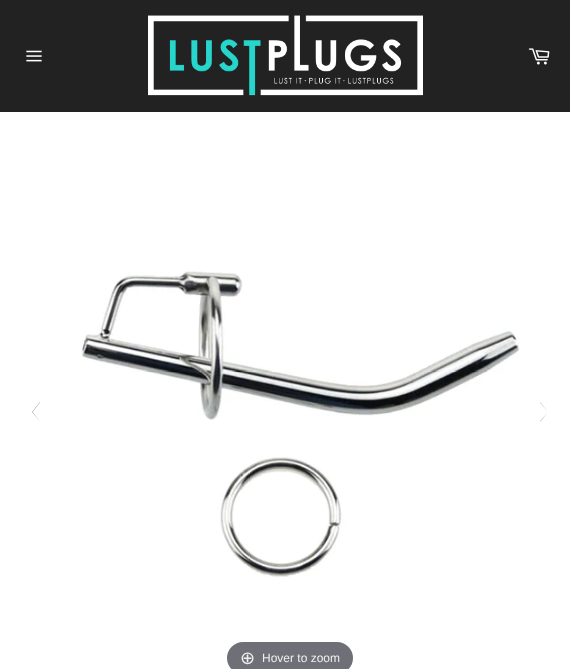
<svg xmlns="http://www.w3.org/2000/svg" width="570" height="669">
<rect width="100%" height="100%" fill="#222"/>
<image x="26" y="50" width="16" height="12" href="media/1.png"/>
<image x="148" y="15" width="275" height="81" href="media/2.png"/>
<image x="528" y="48" width="22" height="17" href="media/3.png"/>
<rect y="112" width="570" height="557" fill="#fff"/>
<path d="M32 412l8-10v.5l-7.5 9.5l7.5 9.5z" fill="#808080"/>
<path d="M548 412l-7.5 9.5h-.5l8-9.5l-8-9.5v-.5z" fill="#808080"/>
<image x="81" y="271" width="439" height="307" href="media/4.png"/>
<rect x="227" y="642" width="126" height="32" rx="16" fill="#6f7077"/>
<text x="240" y="664" style="font-family:DejaVu Sans;font-size:18px;fill:#eee">⊕</text>
<text x="262" y="662" style="font-family:Liberation Sans;font-size:12px;fill:#eee">Hover to zoom</text>
</svg>
